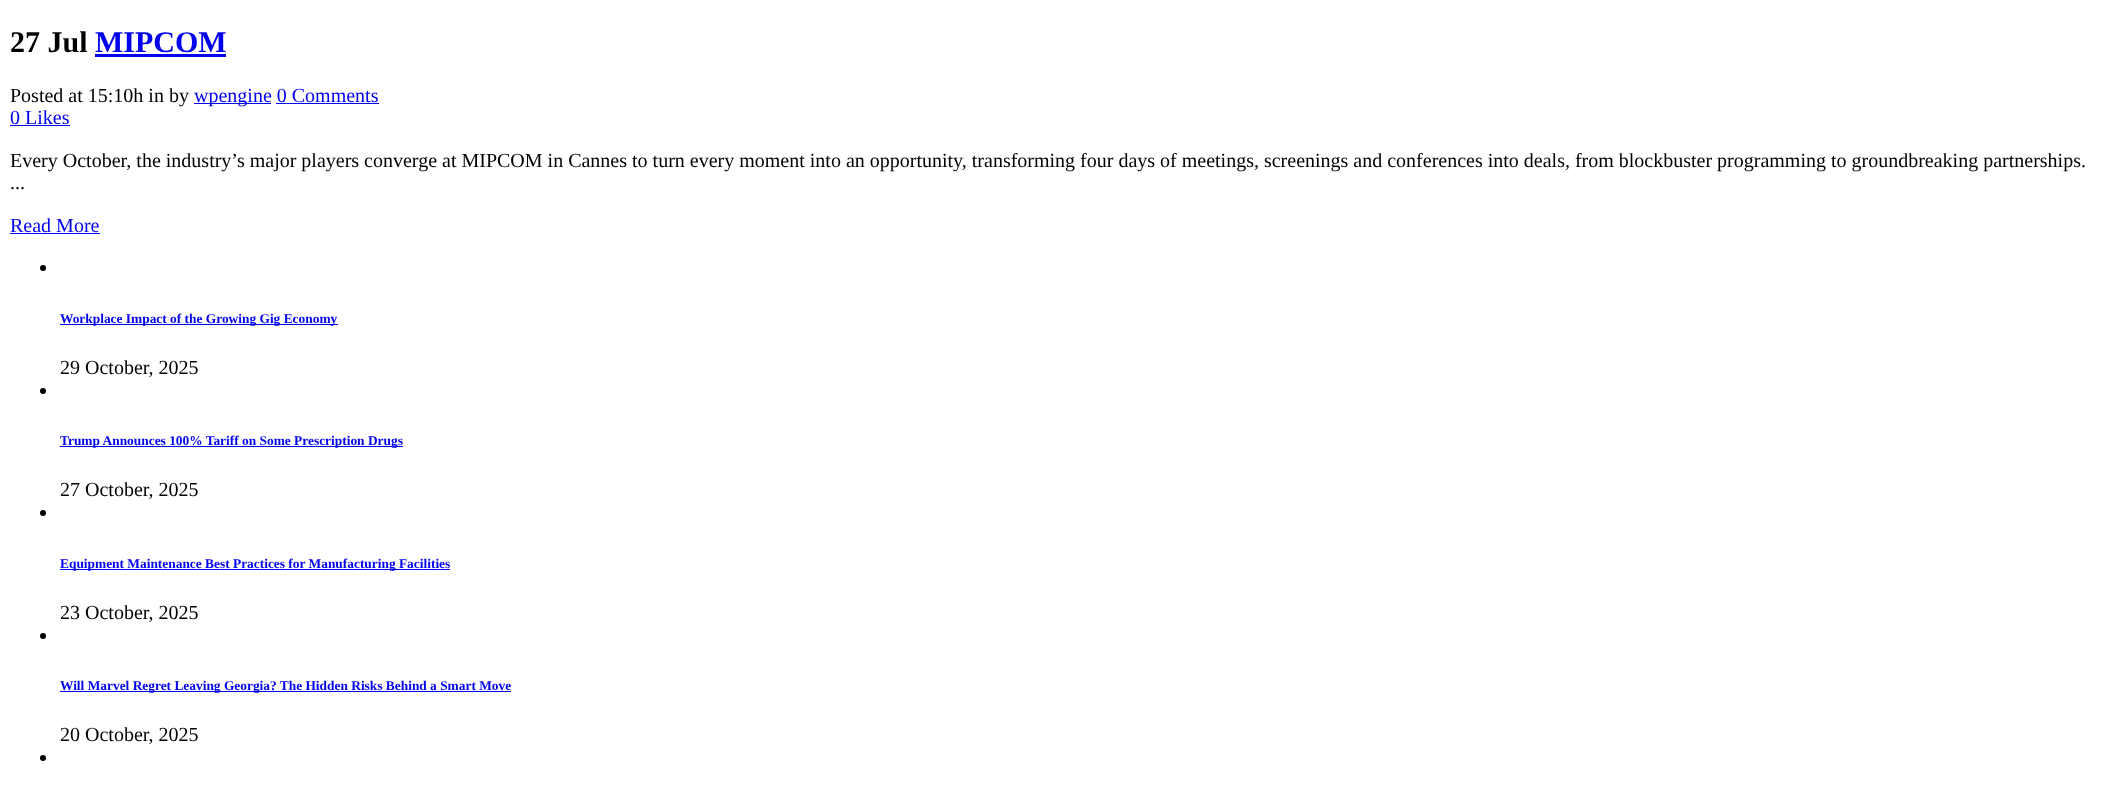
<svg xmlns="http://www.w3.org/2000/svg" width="2101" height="794">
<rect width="100%" height="100%" fill="#fff"/>
<text x="10" y="52" style="font-family:Liberation Serif;font-size:30px;font-weight:bold;fill:#000">27 Jul</text>
<text x="95" y="52" style="font-family:Liberation Serif;font-size:30px;font-weight:bold;fill:#00e">MIPCOM</text>
<rect x="95" y="54" width="131" height="3" fill="#00e"/>
<text x="10" y="102" style="font-family:Liberation Serif;font-size:20px;fill:#000">Posted at 15:10h in by</text>
<rect x="194" y="103" width="77" height="1" fill="#00e"/>
<text x="194" y="102" style="font-family:Liberation Serif;font-size:20px;fill:#00e">wpengine 0 Comments</text>
<rect x="276" y="103" width="103" height="1" fill="#00e"/>
<text x="10" y="124" style="font-family:Liberation Serif;font-size:20px;fill:#00e">0 Likes</text>
<rect x="10" y="125" width="60" height="1" fill="#00e"/>
<text x="10" y="167" style="font-family:Liberation Serif;font-size:20px;fill:#000">Every October, the industry’s major players converge at MIPCOM in Cannes to turn every moment into an opportunity, transforming four days of meetings, screenings and conferences into deals, from blockbuster programming to groundbreaking partnerships.</text>
<text x="10" y="189" style="font-family:Liberation Serif;font-size:20px;fill:#000">...</text>
<text x="10" y="232" style="font-family:Liberation Serif;font-size:20px;fill:#00e">Read More</text>
<rect x="10" y="233" width="90" height="1" fill="#00e"/>
<circle cx="43" cy="268" r="3" fill="#000"/>
<rect x="60" y="324" width="278" height="1" fill="#00e"/>
<text x="60" y="323" style="font-family:Liberation Serif;font-size:13.4px;font-weight:bold;fill:#00e">Workplace Impact of the Growing Gig Economy</text>
<text x="60" y="374" style="font-family:Liberation Serif;font-size:20px;fill:#000">29 October, 2025</text>
<circle cx="43" cy="391" r="3" fill="#000"/>
<rect x="60" y="446" width="343" height="1" fill="#00e"/>
<text x="60" y="445" style="font-family:Liberation Serif;font-size:13.4px;font-weight:bold;fill:#00e">Trump Announces 100% Tariff on Some Prescription Drugs</text>
<text x="60" y="496" style="font-family:Liberation Serif;font-size:20px;fill:#000">27 October, 2025</text>
<circle cx="43" cy="513" r="3" fill="#000"/>
<rect x="60" y="569" width="390" height="1" fill="#00e"/>
<text x="60" y="568" style="font-family:Liberation Serif;font-size:13.4px;font-weight:bold;fill:#00e">Equipment Maintenance Best Practices for Manufacturing Facilities</text>
<text x="60" y="619" style="font-family:Liberation Serif;font-size:20px;fill:#000">23 October, 2025</text>
<circle cx="43" cy="636" r="3" fill="#000"/>
<rect x="60" y="691" width="451" height="1" fill="#00e"/>
<text x="60" y="690" style="font-family:Liberation Serif;font-size:13.4px;font-weight:bold;fill:#00e">Will Marvel Regret Leaving Georgia? The Hidden Risks Behind a Smart Move</text>
<text x="60" y="741" style="font-family:Liberation Serif;font-size:20px;fill:#000">20 October, 2025</text>
<circle cx="43" cy="758" r="3" fill="#000"/>
</svg>
